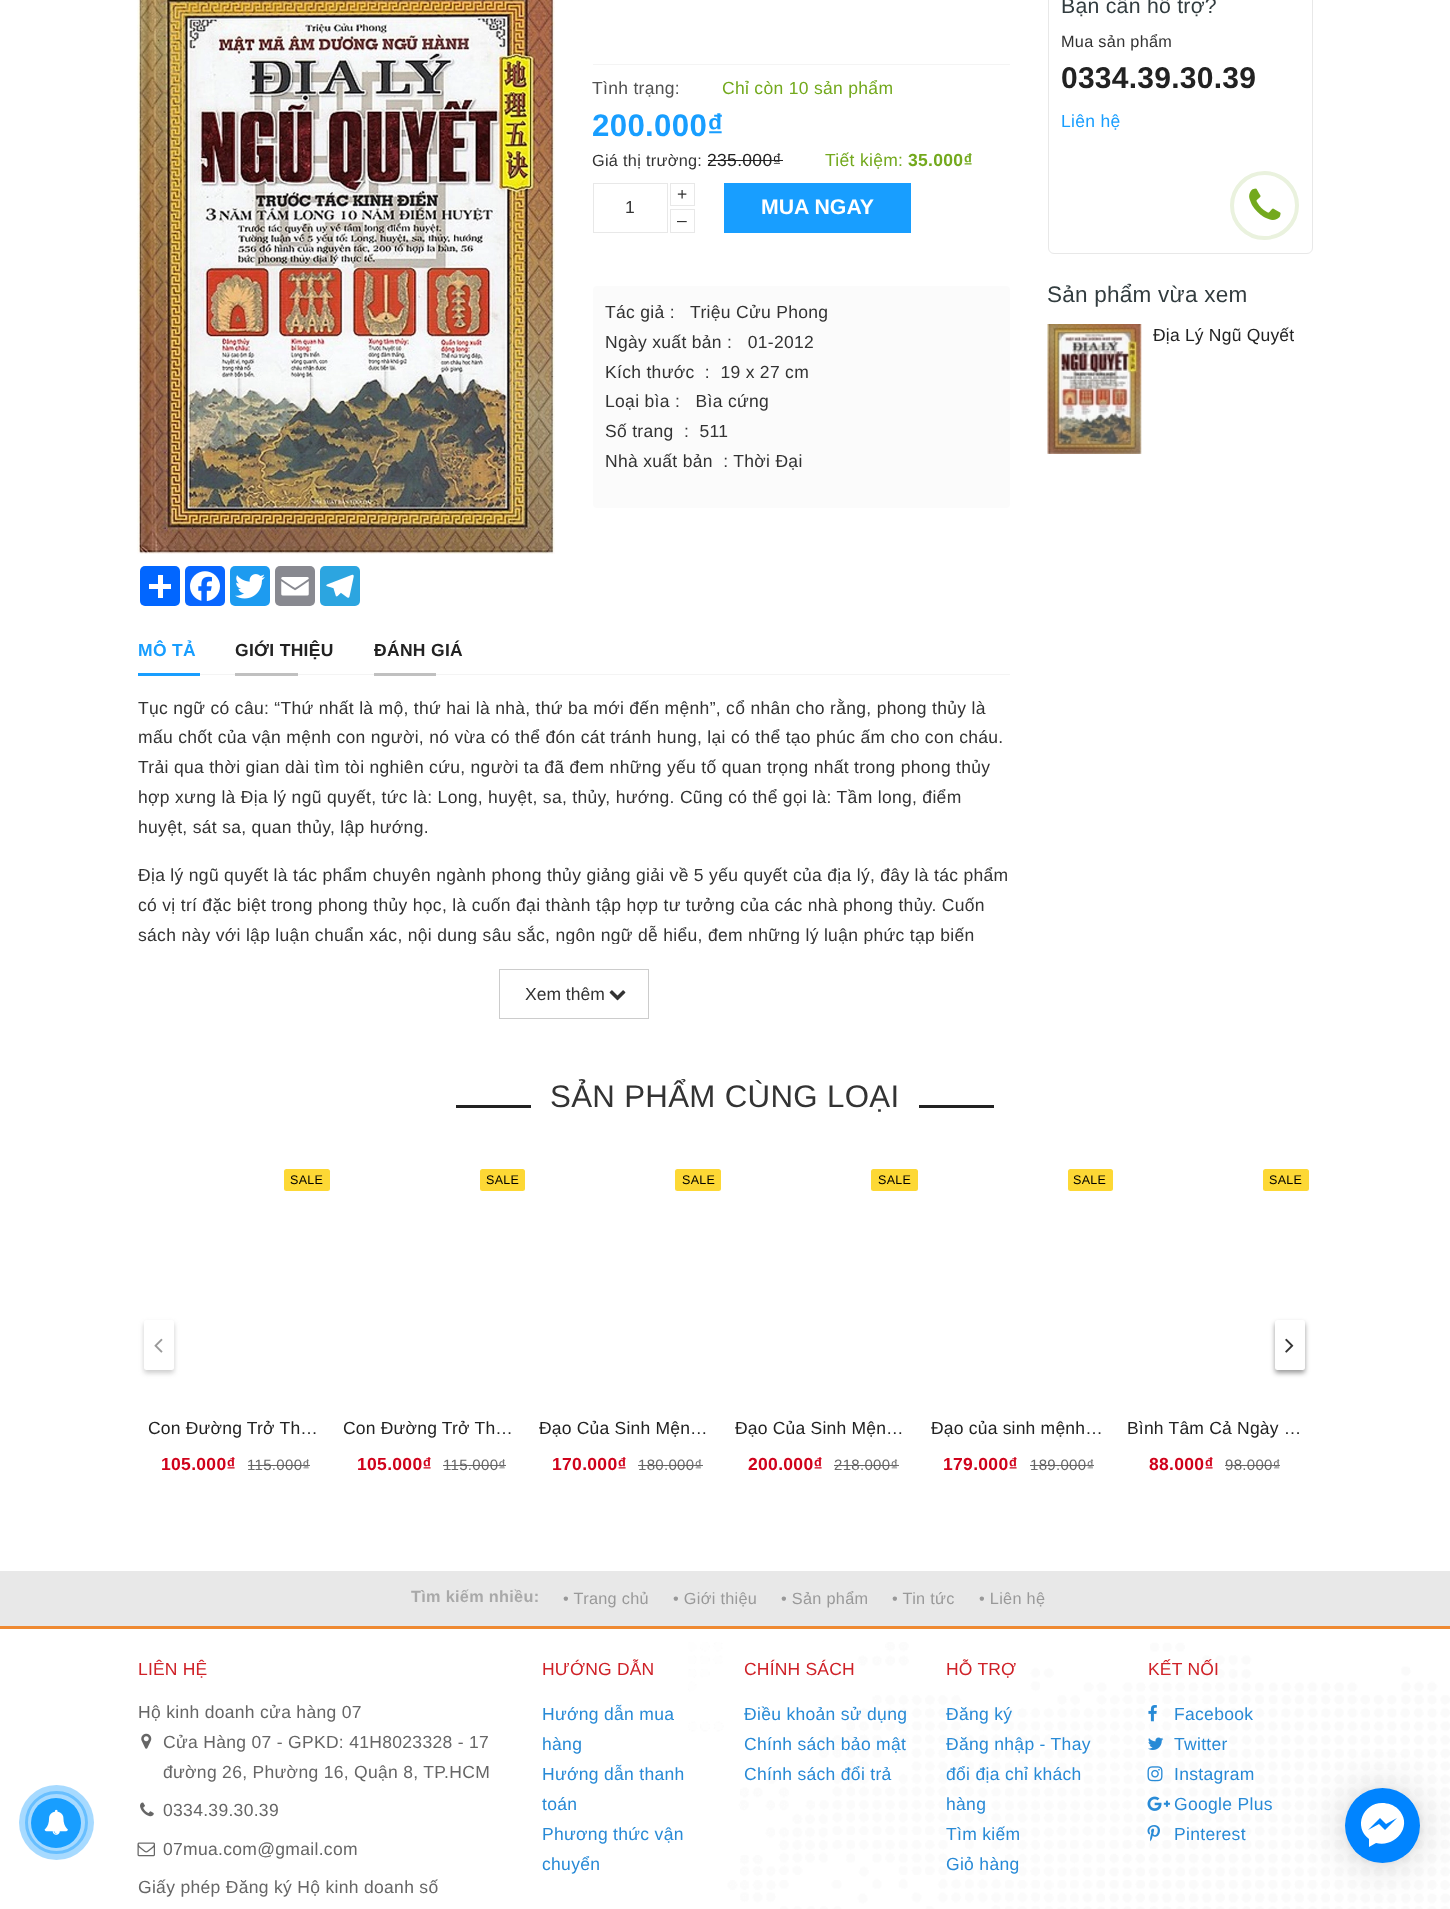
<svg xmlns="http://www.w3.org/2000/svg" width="1450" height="1909">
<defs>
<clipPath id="clip1"><rect x="119" y="694" width="910" height="250"/></clipPath>
<clipPath id="clip2"><rect x="1345" y="1788" width="75" height="75" rx="37.5"/></clipPath>
</defs>
<rect width="100%" height="100%" fill="#fff"/>
<circle cx="56.5" cy="1822.5" r="30" fill="none" stroke="#99d4ff" stroke-width="3"/>
<circle cx="56.5" cy="1822.5" r="37.5" fill="#189eff61"/>
<circle cx="56" cy="1823" r="25" fill="#189eff"/>
<image x="44" y="1809" width="24" height="26" href="media/1.png"/>
<image x="137" y="0" width="418" height="554" href="media/2.png"/>
<rect x="140" y="566" width="40" height="40" rx="5" fill="#0166ff"/>
<rect x="158" y="575" width="5" height="23" fill="#fff"/>
<rect x="149" y="584" width="22" height="5" fill="#fff"/>
<rect x="185" y="566" width="40" height="40" rx="5" fill="#0866ff"/>
<image x="190" y="571" width="30" height="31" href="media/3.png"/>
<rect x="230" y="566" width="40" height="40" rx="5" fill="#1d9bf0"/>
<image x="235" y="574" width="30" height="25" href="media/4.png"/>
<rect x="275" y="566" width="40" height="40" rx="5" fill="#888990"/>
<image x="281" y="577" width="28" height="19" href="media/5.png"/>
<rect x="320" y="566" width="40" height="40" rx="5" fill="#2ca5e0"/>
<image x="326" y="574" width="28" height="24" href="media/6.png"/>
<rect x="593" y="64" width="417" height="1" fill="#f4f4f4"/>
<text x="592" y="94" style="font-family:Liberation Sans;font-size:17.5px;letter-spacing:0.31px;fill:#525252">Tình trạng:</text>
<text x="722" y="94" style="font-family:Liberation Sans;font-size:17.5px;letter-spacing:0.31px;fill:#73a91d">Chỉ còn 10 sản phẩm</text>
<text x="592" y="136" style="font-family:Liberation Sans;font-size:31.25px;font-weight:bold;letter-spacing:0.31px;fill:#189eff">200.000₫</text>
<text x="592" y="166" style="font-family:Liberation Sans;font-size:16.25px;letter-spacing:0.31px;fill:#333">Giá thị trường:</text>
<text x="707" y="166" style="font-family:Liberation Sans;font-size:17.5px;letter-spacing:0.31px;fill:#222">235.000₫</text>
<rect x="708" y="160" width="75" height="1" fill="#222"/>
<text x="825" y="166" style="font-family:Liberation Sans;font-size:17.5px;letter-spacing:0.31px;fill:#73a91d">Tiết kiệm:</text>
<text x="908" y="166" style="font-family:Liberation Sans;font-size:17.5px;font-weight:bold;letter-spacing:0.31px;fill:#73a91d">35.000₫</text>
<rect x="593.5" y="183.5" width="74" height="49" fill="none" stroke="#e8e8e8"/>
<text x="625" y="213" style="font-family:Liberation Sans;font-size:17.5px;letter-spacing:0.31px;fill:#333">1</text>
<rect x="670.5" y="183.5" width="24" height="22" fill="none" stroke="#e8e8e8"/>
<text x="677" y="200" style="font-family:Liberation Sans;font-size:17.5px;letter-spacing:0.31px;fill:#333">+</text>
<rect x="670.5" y="209.5" width="24" height="23" fill="none" stroke="#e8e8e8"/>
<text x="677" y="226" style="font-family:Liberation Sans;font-size:17.5px;letter-spacing:0.31px;fill:#333">–</text>
<rect x="724" y="183" width="187" height="50" fill="#189eff"/>
<text x="761" y="214" style="font-family:Liberation Sans;font-size:21.25px;font-weight:bold;fill:#fff">MUA NGAY</text>
<rect x="593" y="286" width="417" height="222" rx="4" fill="#fbfbfb"/>
<text x="605" y="318" style="font-family:Liberation Sans;font-size:17.5px;letter-spacing:0.31px;fill:#333" xml:space="preserve">Tác giả :   Triệu Cửu Phong</text>
<text x="605" y="348" style="font-family:Liberation Sans;font-size:17.5px;letter-spacing:0.31px;fill:#333" xml:space="preserve">Ngày xuất bản :   01-2012</text>
<text x="605" y="378" style="font-family:Liberation Sans;font-size:17.5px;letter-spacing:0.31px;fill:#333" xml:space="preserve">Kích thước  :  19 x 27 cm</text>
<text x="605" y="407" style="font-family:Liberation Sans;font-size:17.5px;letter-spacing:0.31px;fill:#333" xml:space="preserve">Loại bìa :   Bìa cứng</text>
<text x="605" y="437" style="font-family:Liberation Sans;font-size:17.5px;letter-spacing:0.31px;fill:#333" xml:space="preserve">Số trang  :  511</text>
<text x="605" y="467" style="font-family:Liberation Sans;font-size:17.5px;letter-spacing:0.31px;fill:#333" xml:space="preserve">Nhà xuất bản  : Thời Đại</text>
<rect x="200" y="674" width="810" height="1" fill="#f4f4f4"/>
<text x="138" y="656" style="font-family:Liberation Sans;font-size:17.5px;font-weight:bold;letter-spacing:0.31px;fill:#189eff">MÔ TẢ</text>
<rect x="138" y="673" width="62" height="3" fill="#189eff"/>
<text x="235" y="656" style="font-family:Liberation Sans;font-size:17.5px;font-weight:bold;letter-spacing:0.31px;fill:#222">GIỚI THIỆU</text>
<rect x="235" y="673" width="63" height="3" fill="#c0c0c0"/>
<text x="374" y="656" style="font-family:Liberation Sans;font-size:17.5px;font-weight:bold;letter-spacing:0.31px;fill:#222">ĐÁNH GIÁ</text>
<rect x="374" y="673" width="62" height="3" fill="#c0c0c0"/>
<text x="138" y="714" style="font-family:Liberation Sans;font-size:17.5px;letter-spacing:0.31px;fill:#333">Tục ngữ có câu: “Thứ nhất là mộ, thứ hai là nhà, thứ ba mới đến mệnh”, cổ nhân cho rằng, phong thủy là</text>
<text x="138" y="743" style="font-family:Liberation Sans;font-size:17.5px;letter-spacing:0.31px;fill:#333">mấu chốt của vận mệnh con người, nó vừa có thể đón cát tránh hung, lại có thể tạo phúc ấm cho con cháu.</text>
<text x="138" y="773" style="font-family:Liberation Sans;font-size:17.5px;letter-spacing:0.31px;fill:#333">Trải qua thời gian dài tìm tòi nghiên cứu, người ta đã đem những yếu tố quan trọng nhất trong phong thủy</text>
<text x="138" y="803" style="font-family:Liberation Sans;font-size:17.5px;letter-spacing:0.31px;fill:#333">hợp xưng là Địa lý ngũ quyết, tức là: Long, huyệt, sa, thủy, hướng. Cũng có thể gọi là: Tầm long, điểm</text>
<text x="138" y="833" style="font-family:Liberation Sans;font-size:17.5px;letter-spacing:0.31px;fill:#333">huyệt, sát sa, quan thủy, lập hướng.</text>
<text x="138" y="881" style="font-family:Liberation Sans;font-size:17.5px;letter-spacing:0.31px;fill:#333">Địa lý ngũ quyết là tác phẩm chuyên ngành phong thủy giảng giải về 5 yếu quyết của địa lý, đây là tác phẩm</text>
<text x="138" y="911" style="font-family:Liberation Sans;font-size:17.5px;letter-spacing:0.31px;fill:#333">có vị trí đặc biệt trong phong thủy học, là cuốn đại thành tập hợp tư tưởng của các nhà phong thủy. Cuốn</text>
<g clip-path="url(#clip1)">
<text x="138" y="941" style="font-family:Liberation Sans;font-size:17.5px;letter-spacing:0.31px;fill:#333">sách này với lập luận chuẩn xác, nội dung sâu sắc, ngôn ngữ dễ hiểu, đem những lý luận phức tạp biến</text>
</g>
<rect x="499.5" y="969.5" width="149" height="49" fill="none" stroke="#ccc"/>
<text x="525" y="1000" style="font-family:Liberation Sans;font-size:17.5px;fill:#333">Xem thêm</text>
<image x="609" y="990" width="17" height="11" href="media/7.png"/>
<rect x="1048.5" y="-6.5" width="264" height="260" rx="5.5" fill="none" stroke="#e8e8e8"/>
<text x="1061" y="13" style="font-family:Liberation Sans;font-size:21.25px;letter-spacing:0.25px;fill:#323c3f">Bạn cần hỗ trợ?</text>
<text x="1061" y="47" style="font-family:Liberation Sans;font-size:16.25px;letter-spacing:0.31px;fill:#333">Mua sản phẩm</text>
<text x="1061" y="88" style="font-family:Liberation Sans;font-size:30px;font-weight:bold;letter-spacing:0.25px;fill:#222">0334.39.30.39</text>
<text x="1061" y="127" style="font-family:Liberation Sans;font-size:17.5px;letter-spacing:0.31px;fill:#189eff">Liên hệ</text>
<circle cx="1264.5" cy="205.5" r="32.5" fill="none" stroke="#eaf2de" stroke-width="4"/>
<image x="1249" y="188" width="32" height="32" href="media/8.png"/>
<text x="1047" y="302" style="font-family:Liberation Sans;font-size:22.5px;letter-spacing:0.25px;fill:#323c3f">Sản phẩm vừa xem</text>
<image x="1047" y="324" width="95" height="130" href="media/9.png"/>
<text x="1153" y="341" style="font-family:Liberation Sans;font-size:17.5px;letter-spacing:0.2px;fill:#222">Địa Lý Ngũ Quyết</text>
<rect x="456" y="1105" width="75" height="3" fill="#222"/>
<text x="550" y="1107" style="font-family:Liberation Sans;font-size:31.25px;letter-spacing:0.31px;fill:#333">SẢN PHẨM CÙNG LOẠI</text>
<rect x="919" y="1105" width="75" height="3" fill="#222"/>
<rect x="284" y="1169" width="46" height="22" rx="2.5" fill="#fdd835"/>
<text x="290" y="1184" style="font-family:Liberation Sans;font-size:12.5px;letter-spacing:0.31px;fill:#000">SALE</text>
<text x="148" y="1434" style="font-family:Liberation Sans;font-size:17.5px;letter-spacing:0.2px;fill:#222">Con Đường Trở Th…</text>
<text x="161" y="1470" style="font-family:Liberation Sans;font-size:17.5px;font-weight:bold;letter-spacing:0.31px;fill:#d0021b">105.000₫</text>
<text x="247" y="1470" style="font-family:Liberation Sans;font-size:15px;letter-spacing:0.31px;fill:#666">115.000₫</text>
<rect x="248" y="1465" width="62" height="1" fill="#666"/>
<rect x="480" y="1169" width="45" height="22" rx="2.5" fill="#fdd835"/>
<text x="486" y="1184" style="font-family:Liberation Sans;font-size:12.5px;letter-spacing:0.31px;fill:#000">SALE</text>
<text x="343" y="1434" style="font-family:Liberation Sans;font-size:17.5px;letter-spacing:0.2px;fill:#222">Con Đường Trở Th…</text>
<text x="357" y="1470" style="font-family:Liberation Sans;font-size:17.5px;font-weight:bold;letter-spacing:0.31px;fill:#d0021b">105.000₫</text>
<text x="443" y="1470" style="font-family:Liberation Sans;font-size:15px;letter-spacing:0.31px;fill:#666">115.000₫</text>
<rect x="443" y="1465" width="63" height="1" fill="#666"/>
<rect x="675" y="1169" width="46" height="22" rx="2.5" fill="#fdd835"/>
<text x="682" y="1184" style="font-family:Liberation Sans;font-size:12.5px;letter-spacing:0.31px;fill:#000">SALE</text>
<text x="539" y="1434" style="font-family:Liberation Sans;font-size:17.5px;letter-spacing:0.2px;fill:#222">Đạo Của Sinh Mện…</text>
<text x="552" y="1470" style="font-family:Liberation Sans;font-size:17.5px;font-weight:bold;letter-spacing:0.31px;fill:#d0021b">170.000₫</text>
<text x="638" y="1470" style="font-family:Liberation Sans;font-size:15px;letter-spacing:0.31px;fill:#666">180.000₫</text>
<rect x="638" y="1465" width="65" height="1" fill="#666"/>
<rect x="871" y="1169" width="47" height="22" rx="2.5" fill="#fdd835"/>
<text x="878" y="1184" style="font-family:Liberation Sans;font-size:12.5px;letter-spacing:0.31px;fill:#000">SALE</text>
<text x="735" y="1434" style="font-family:Liberation Sans;font-size:17.5px;letter-spacing:0.2px;fill:#222">Đạo Của Sinh Mện…</text>
<text x="748" y="1470" style="font-family:Liberation Sans;font-size:17.5px;font-weight:bold;letter-spacing:0.31px;fill:#d0021b">200.000₫</text>
<text x="834" y="1470" style="font-family:Liberation Sans;font-size:15px;letter-spacing:0.31px;fill:#666">218.000₫</text>
<rect x="834" y="1465" width="65" height="1" fill="#666"/>
<rect x="1068" y="1169" width="45" height="22" rx="2.5" fill="#fdd835"/>
<text x="1073" y="1184" style="font-family:Liberation Sans;font-size:12.5px;letter-spacing:0.31px;fill:#000">SALE</text>
<text x="931" y="1434" style="font-family:Liberation Sans;font-size:17.5px;letter-spacing:0.2px;fill:#222">Đạo của sinh mệnh…</text>
<text x="943" y="1470" style="font-family:Liberation Sans;font-size:17.5px;font-weight:bold;letter-spacing:0.31px;fill:#d0021b">179.000₫</text>
<text x="1030" y="1470" style="font-family:Liberation Sans;font-size:15px;letter-spacing:0.31px;fill:#666">189.000₫</text>
<rect x="1030" y="1465" width="64" height="1" fill="#666"/>
<rect x="1263" y="1169" width="46" height="22" rx="2.5" fill="#fdd835"/>
<text x="1269" y="1184" style="font-family:Liberation Sans;font-size:12.5px;letter-spacing:0.31px;fill:#000">SALE</text>
<text x="1127" y="1434" style="font-family:Liberation Sans;font-size:17.5px;letter-spacing:0.2px;fill:#222">Bình Tâm Cả Ngày …</text>
<text x="1149" y="1470" style="font-family:Liberation Sans;font-size:17.5px;font-weight:bold;letter-spacing:0.31px;fill:#d0021b">88.000₫</text>
<text x="1225" y="1470" style="font-family:Liberation Sans;font-size:15px;letter-spacing:0.31px;fill:#666">98.000₫</text>
<rect x="1225" y="1465" width="55" height="1" fill="#666"/>
<rect x="144" y="1323" width="30" height="50" rx="2.5" fill="#80808066" filter="blur(2.5px)"/>
<rect x="144" y="1320" width="30" height="50" rx="2.5" fill="#fff"/>
<image x="154" y="1338" width="9" height="15" href="media/10.png"/>
<rect x="1275" y="1323" width="30" height="50" rx="2.5" fill="#00000066" filter="blur(2.5px)"/>
<rect x="1275" y="1320" width="30" height="50" rx="2.5" fill="#fff"/>
<image x="1285" y="1338" width="9" height="15" href="media/11.png"/>
<rect y="1571" width="1450" height="55" fill="#e8e8e8"/>
<text x="411" y="1602" style="font-family:Liberation Sans;font-size:16.25px;font-weight:bold;letter-spacing:0.31px;fill:#a9a9a9">Tìm kiếm nhiều:</text>
<text x="563" y="1604" style="font-family:Liberation Sans;font-size:16.25px;letter-spacing:0.31px;fill:#999">• Trang chủ</text>
<text x="673" y="1604" style="font-family:Liberation Sans;font-size:16.25px;letter-spacing:0.31px;fill:#999">• Giới thiệu</text>
<text x="781" y="1604" style="font-family:Liberation Sans;font-size:16.25px;letter-spacing:0.31px;fill:#999">• Sản phẩm</text>
<text x="892" y="1604" style="font-family:Liberation Sans;font-size:16.25px;letter-spacing:0.31px;fill:#999">• Tin tức</text>
<text x="979" y="1604" style="font-family:Liberation Sans;font-size:16.25px;letter-spacing:0.31px;fill:#999">• Liên hệ</text>
<image x="688" y="1642" width="762" height="267" href="media/12.png"/>
<rect y="1626" width="1450" height="3" fill="#ef8a32"/>
<text x="138" y="1675" style="font-family:Liberation Sans;font-size:17.5px;letter-spacing:0.2px;fill:#cf2127">LIÊN HỆ</text>
<text x="138" y="1718" style="font-family:Liberation Sans;font-size:17.5px;letter-spacing:0.31px;fill:#666">Hộ kinh doanh cửa hàng 07</text>
<image x="141" y="1733" width="11" height="16" href="media/13.png"/>
<text x="163" y="1748" style="font-family:Liberation Sans;font-size:17.5px;letter-spacing:0.31px;fill:#666">Cửa Hàng 07 - GPKD: 41H8023328 - 17</text>
<text x="163" y="1778" style="font-family:Liberation Sans;font-size:17.5px;letter-spacing:0.31px;fill:#666">đường 26, Phường 16, Quận 8, TP.HCM</text>
<image x="140" y="1802" width="14" height="15" href="media/14.png"/>
<text x="163" y="1816" style="font-family:Liberation Sans;font-size:17.5px;letter-spacing:0.31px;fill:#666">0334.39.30.39</text>
<image x="137" y="1842" width="18" height="15" href="media/15.png"/>
<text x="163" y="1855" style="font-family:Liberation Sans;font-size:17.5px;letter-spacing:0.31px;fill:#666">07mua.com@gmail.com</text>
<text x="138" y="1893" style="font-family:Liberation Sans;font-size:17.5px;letter-spacing:0.31px;fill:#666">Giấy phép Đăng ký Hộ kinh doanh số</text>
<text x="542" y="1675" style="font-family:Liberation Sans;font-size:17.5px;letter-spacing:0.2px;fill:#cf2127">HƯỚNG DẪN</text>
<text x="542" y="1720" style="font-family:Liberation Sans;font-size:17.5px;letter-spacing:0.31px;fill:#288ad6">Hướng dẫn mua</text>
<text x="542" y="1750" style="font-family:Liberation Sans;font-size:17.5px;letter-spacing:0.31px;fill:#288ad6">hàng</text>
<text x="542" y="1780" style="font-family:Liberation Sans;font-size:17.5px;letter-spacing:0.31px;fill:#288ad6">Hướng dẫn thanh</text>
<text x="542" y="1810" style="font-family:Liberation Sans;font-size:17.5px;letter-spacing:0.31px;fill:#288ad6">toán</text>
<text x="542" y="1840" style="font-family:Liberation Sans;font-size:17.5px;letter-spacing:0.31px;fill:#288ad6">Phương thức vận</text>
<text x="542" y="1870" style="font-family:Liberation Sans;font-size:17.5px;letter-spacing:0.31px;fill:#288ad6">chuyển</text>
<text x="744" y="1675" style="font-family:Liberation Sans;font-size:17.5px;letter-spacing:0.2px;fill:#cf2127">CHÍNH SÁCH</text>
<text x="744" y="1720" style="font-family:Liberation Sans;font-size:17.5px;letter-spacing:0.31px;fill:#288ad6">Điều khoản sử dụng</text>
<text x="744" y="1750" style="font-family:Liberation Sans;font-size:17.5px;letter-spacing:0.31px;fill:#288ad6">Chính sách bảo mật</text>
<text x="744" y="1780" style="font-family:Liberation Sans;font-size:17.5px;letter-spacing:0.31px;fill:#288ad6">Chính sách đổi trả</text>
<text x="946" y="1675" style="font-family:Liberation Sans;font-size:17.5px;letter-spacing:0.2px;fill:#cf2127">HỖ TRỢ</text>
<text x="946" y="1720" style="font-family:Liberation Sans;font-size:17.5px;letter-spacing:0.31px;fill:#288ad6">Đăng ký</text>
<text x="946" y="1750" style="font-family:Liberation Sans;font-size:17.5px;letter-spacing:0.31px;fill:#288ad6">Đăng nhập - Thay</text>
<text x="946" y="1780" style="font-family:Liberation Sans;font-size:17.5px;letter-spacing:0.31px;fill:#288ad6">đổi địa chỉ khách</text>
<text x="946" y="1810" style="font-family:Liberation Sans;font-size:17.5px;letter-spacing:0.31px;fill:#288ad6">hàng</text>
<text x="946" y="1840" style="font-family:Liberation Sans;font-size:17.5px;letter-spacing:0.31px;fill:#288ad6">Tìm kiếm</text>
<text x="946" y="1870" style="font-family:Liberation Sans;font-size:17.5px;letter-spacing:0.31px;fill:#288ad6">Giỏ hàng</text>
<text x="1148" y="1675" style="font-family:Liberation Sans;font-size:17.5px;letter-spacing:0.2px;fill:#cf2127">KẾT NỐI</text>
<image x="1148" y="1705" width="9" height="17" href="media/16.png"/>
<text x="1174" y="1720" style="font-family:Liberation Sans;font-size:17.5px;letter-spacing:0.31px;fill:#288ad6">Facebook</text>
<image x="1148" y="1737" width="16" height="13" href="media/17.png"/>
<text x="1174" y="1750" style="font-family:Liberation Sans;font-size:17.5px;letter-spacing:0.31px;fill:#288ad6">Twitter</text>
<image x="1147" y="1766" width="16" height="16" href="media/18.png"/>
<text x="1174" y="1780" style="font-family:Liberation Sans;font-size:17.5px;letter-spacing:0.31px;fill:#288ad6">Instagram</text>
<image x="1147" y="1796" width="23" height="15" href="media/19.png"/>
<text x="1174" y="1810" style="font-family:Liberation Sans;font-size:17.5px;letter-spacing:0.31px;fill:#288ad6">Google Plus</text>
<image x="1147" y="1825" width="13" height="17" href="media/20.png"/>
<text x="1174" y="1840" style="font-family:Liberation Sans;font-size:17.5px;letter-spacing:0.31px;fill:#288ad6">Pinterest</text>
<rect x="1345" y="1790" width="75" height="75" rx="37.5" fill="#00000029" filter="blur(20px)"/>
<rect x="1345" y="1789" width="75" height="75" rx="37.5" fill="#0000000f" filter="blur(4px)"/>
<circle cx="1382.5" cy="1825.5" r="37.5" fill="#0084ff"/>
<g clip-path="url(#clip2)">
<rect x="1353" y="1795" width="60" height="60" fill="#0084ff"/>
</g>
<path d="M1382 1803c-19 0-29 24-13 36v8l7-4c20 5 38-18 22-34c-4-4-10-6-16-6zm3 27l-6-6l-11 6l12-12l6 6l11-6z" fill="#fff"/>
</svg>
